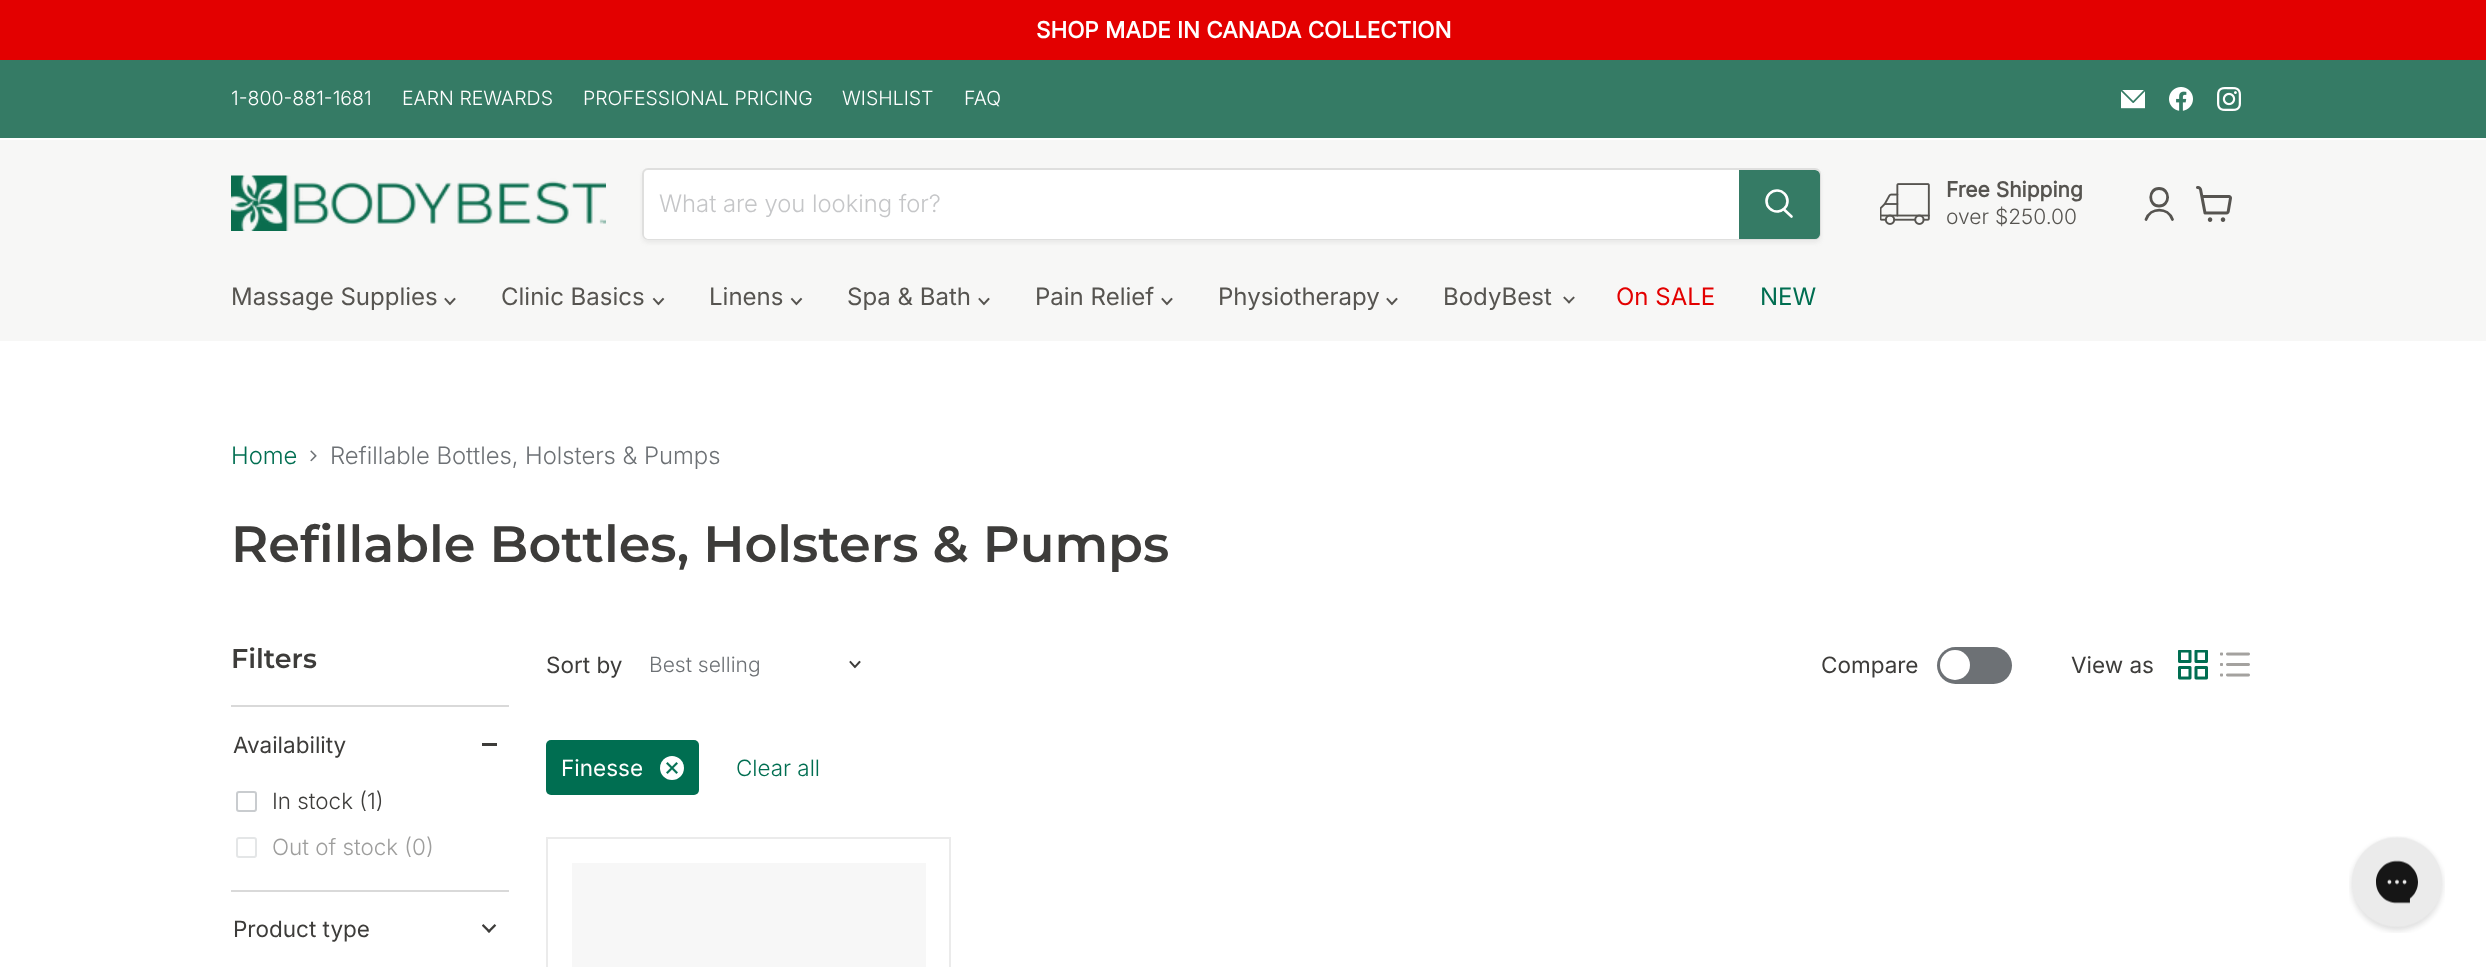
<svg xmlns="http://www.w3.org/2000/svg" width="2486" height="967">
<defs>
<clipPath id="clip1"><path d="M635 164h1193v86h-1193zm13 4h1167c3.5 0 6 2.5 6 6v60c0 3.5-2.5 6-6 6h-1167c-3.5 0-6-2.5-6-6v-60c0-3.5 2.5-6 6-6z" clip-rule="evenodd"/></clipPath>
</defs>
<rect width="100%" height="100%" fill="#fff"/>
<rect width="2486" height="60" fill="#e30000"/>
<text x="1036" y="38" style="font-family:Inter;font-size:22.5px;font-weight:bold;fill:#fff">SHOP MADE IN CANADA COLLECTION</text>
<rect y="60" width="2486" height="78" fill="#357b65"/>
<text x="231" y="105" style="font-family:'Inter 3';font-size:19.5px;font-weight:300;fill:#fff">1-800-881-1681</text>
<text x="402" y="105" style="font-family:'Inter 3';font-size:19.5px;font-weight:300;fill:#fff">EARN REWARDS</text>
<text x="583" y="105" style="font-family:'Inter 3';font-size:19.5px;font-weight:300;fill:#fff">PROFESSIONAL PRICING</text>
<text x="842" y="105" style="font-family:'Inter 3';font-size:19.5px;font-weight:300;fill:#fff">WISHLIST</text>
<text x="964" y="105" style="font-family:'Inter 3';font-size:19.5px;font-weight:300;fill:#fff">FAQ</text>
<image x="2121" y="90" width="24" height="19" href="media/1.png"/>
<image x="2169" y="87" width="24" height="24" href="media/2.png"/>
<image x="2217" y="87" width="24" height="24" href="media/3.png"/>
<rect y="140" width="2486" height="201" fill="#f7f7f6"/>
<image x="231" y="175" width="375" height="56" href="media/4.png"/>
<g clip-path="url(#clip1)">
<rect x="642" y="171" width="1179" height="72" rx="6" fill="#8080801c" filter="blur(2px)"/>
</g>
<rect x="643" y="169" width="1177" height="70" rx="5" fill="none" stroke="#80808033" stroke-width="2"/>
<path d="M649 170h1090v69h-1090c-3 0-5-2-5-5v-59c0-3 2-5 5-5z" fill="#fff"/>
<text x="659" y="212" style="font-family:Inter;font-size:24px;font-weight:300;fill:#c5c6c8">What are you looking for?</text>
<path d="M1740 171h75c2 0 4 2 4 4v59c0 2-2 4-4 4h-75z" fill="#357b65" stroke="#357b65" stroke-width="2"/>
<path d="M1791.5 216.5l-7.5-7" fill="none" stroke="#fff" stroke-width="2.6" stroke-linecap="round"/>
<circle cx="1777" cy="201" r="10.5" fill="none" stroke="#fff" stroke-width="2.6"/>
<image x="1880" y="183" width="50" height="42" href="media/5.png"/>
<text x="1946" y="197" style="font-family:Inter;font-size:21px;font-weight:bold;fill:#565450">Free Shipping</text>
<text x="1946" y="224" style="font-family:'Inter 3';font-size:21px;font-weight:300;fill:#565450">over $250.00</text>
<path d="M2159 206c11.5 0 11.5-17.5 0-17.5c-11 0-11 17.5 0 17.5zm13.5 13.5c-4.5-12.5-22-12.5-26.5 0" fill="none" stroke="#565450" stroke-width="2.8" stroke-linecap="round" stroke-linejoin="round"/>
<image x="2196" y="186" width="36" height="36" href="media/6.png"/>
<text x="231" y="305" style="font-family:Inter;font-size:24px;fill:#565450">Massage Supplies</text>
<path d="M450 304l4.5-5m-4.5 5l-4.5-5" fill="none" stroke="#565450" stroke-width="1.9" stroke-linecap="square"/>
<text x="501" y="305" style="font-family:Inter;font-size:24px;fill:#565450">Clinic Basics</text>
<path d="M658.5 304l4.5-5m-4.5 5l-4.5-5" fill="none" stroke="#565450" stroke-width="1.9" stroke-linecap="square"/>
<text x="709" y="305" style="font-family:Inter;font-size:24px;fill:#565450">Linens</text>
<path d="M796.5 304l4.5-5m-4.5 5l-4.5-5" fill="none" stroke="#565450" stroke-width="1.9" stroke-linecap="square"/>
<text x="847" y="305" style="font-family:Inter;font-size:24px;fill:#565450">Spa &amp; Bath</text>
<path d="M984 304l4.5-5m-4.5 5l-4.5-5" fill="none" stroke="#565450" stroke-width="1.9" stroke-linecap="square"/>
<text x="1035" y="305" style="font-family:Inter;font-size:24px;fill:#565450">Pain Relief</text>
<path d="M1167 304l4.5-5m-4.5 5l-4.5-5" fill="none" stroke="#565450" stroke-width="1.9" stroke-linecap="square"/>
<text x="1218" y="305" style="font-family:Inter;font-size:24px;fill:#565450">Physiotherapy</text>
<path d="M1392 304l4.5-5m-4.5 5l-4.5-5" fill="none" stroke="#565450" stroke-width="1.9" stroke-linecap="square"/>
<text x="1443" y="305" style="font-family:Inter;font-size:24px;fill:#565450">BodyBest</text>
<image x="1563" y="296" width="12" height="8" href="media/7.png"/>
<text x="1616" y="305" style="font-family:Inter;font-size:24px;fill:#e30000">On SALE</text>
<text x="1760" y="305" style="font-family:Inter;font-size:24px;fill:#006e51">NEW</text>
<text x="231" y="464" style="font-family:Inter;font-size:24px;font-weight:300;fill:#006e51">Home</text>
<image x="310" y="450" width="7" height="12" href="media/8.png"/>
<text x="330" y="464" style="font-family:Inter;font-size:24px;font-weight:300;fill:#6d7175">Refillable Bottles, Holsters &amp; Pumps</text>
<text x="231" y="562" style="font-family:Montserrat;font-size:51px;font-weight:600;fill:#3d3c3a">Refillable Bottles, Holsters &amp; Pumps</text>
<text x="231" y="668" style="font-family:Montserrat;font-size:27px;font-weight:600;fill:#3d3c3a">Filters</text>
<rect x="231" y="705" width="278" height="2" fill="#d9d9d9"/>
<text x="233" y="753" style="font-family:Inter;font-size:22.5px;fill:#3d3c3a">Availability</text>
<rect x="482" y="743" width="15" height="3" fill="#3d3c3a"/>
<rect x="237" y="792" width="19" height="19" rx="2" fill="none" stroke="#c9cccf" stroke-width="2"/>
<text x="272" y="809" style="font-family:'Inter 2';font-size:22.5px;font-weight:300;fill:#3d3c3a">In stock (1)</text>
<rect x="237" y="838" width="19" height="19" rx="2" fill="none" stroke="#e4e6e7" stroke-width="2"/>
<text x="272" y="855" style="font-family:'Inter 2';font-size:22.5px;font-weight:300;fill:#9e9e9d">Out of stock (0)</text>
<rect x="231" y="890" width="278" height="2" fill="#d9d9d9"/>
<text x="233" y="937" style="font-family:Inter;font-size:22.5px;fill:#3d3c3a">Product type</text>
<image x="482" y="924" width="15" height="9" href="media/9.png"/>
<text x="546" y="673" style="font-family:Inter;font-size:22.5px;fill:#3d3c3a">Sort by</text>
<text x="649" y="672" style="font-family:'Inter 3';font-size:21px;font-weight:300;fill:#6d7175">Best selling</text>
<path d="M855 667l4.5-5m-4.5 5l-4.5-5" fill="none" stroke="#3d3c3a" stroke-width="1.9" stroke-linecap="square"/>
<text x="1821" y="673" style="font-family:Inter;font-size:22.5px;fill:#3d3c3a">Compare</text>
<rect x="1937" y="647" width="75" height="37" rx="18.5" fill="#6d7175"/>
<circle cx="1955" cy="665" r="15" fill="#fff"/>
<text x="2071" y="673" style="font-family:Inter;font-size:22.5px;fill:#3d3c3a">View as</text>
<image x="2178" y="650" width="30" height="30" href="media/10.png"/>
<image x="2220" y="652" width="30" height="25" href="media/11.png"/>
<rect x="546" y="740" width="153" height="55" rx="5" fill="#006e51"/>
<text x="561" y="776" style="font-family:Inter;font-size:22.5px;fill:#fff">Finesse</text>
<circle cx="672" cy="768" r="12" fill="#fff"/>
<image x="666" y="762" width="12" height="12" href="media/12.png"/>
<text x="736" y="776" style="font-family:'Inter 2';font-size:22.5px;font-weight:300;fill:#006e51">Clear all</text>
<rect x="547" y="838" width="403" height="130" fill="none" stroke="#ebebeb" stroke-width="2"/>
<rect x="572" y="863" width="354" height="104" fill="#f7f7f7"/>
<image x="2349" y="836" width="96" height="97" href="media/13.png"/>
</svg>
